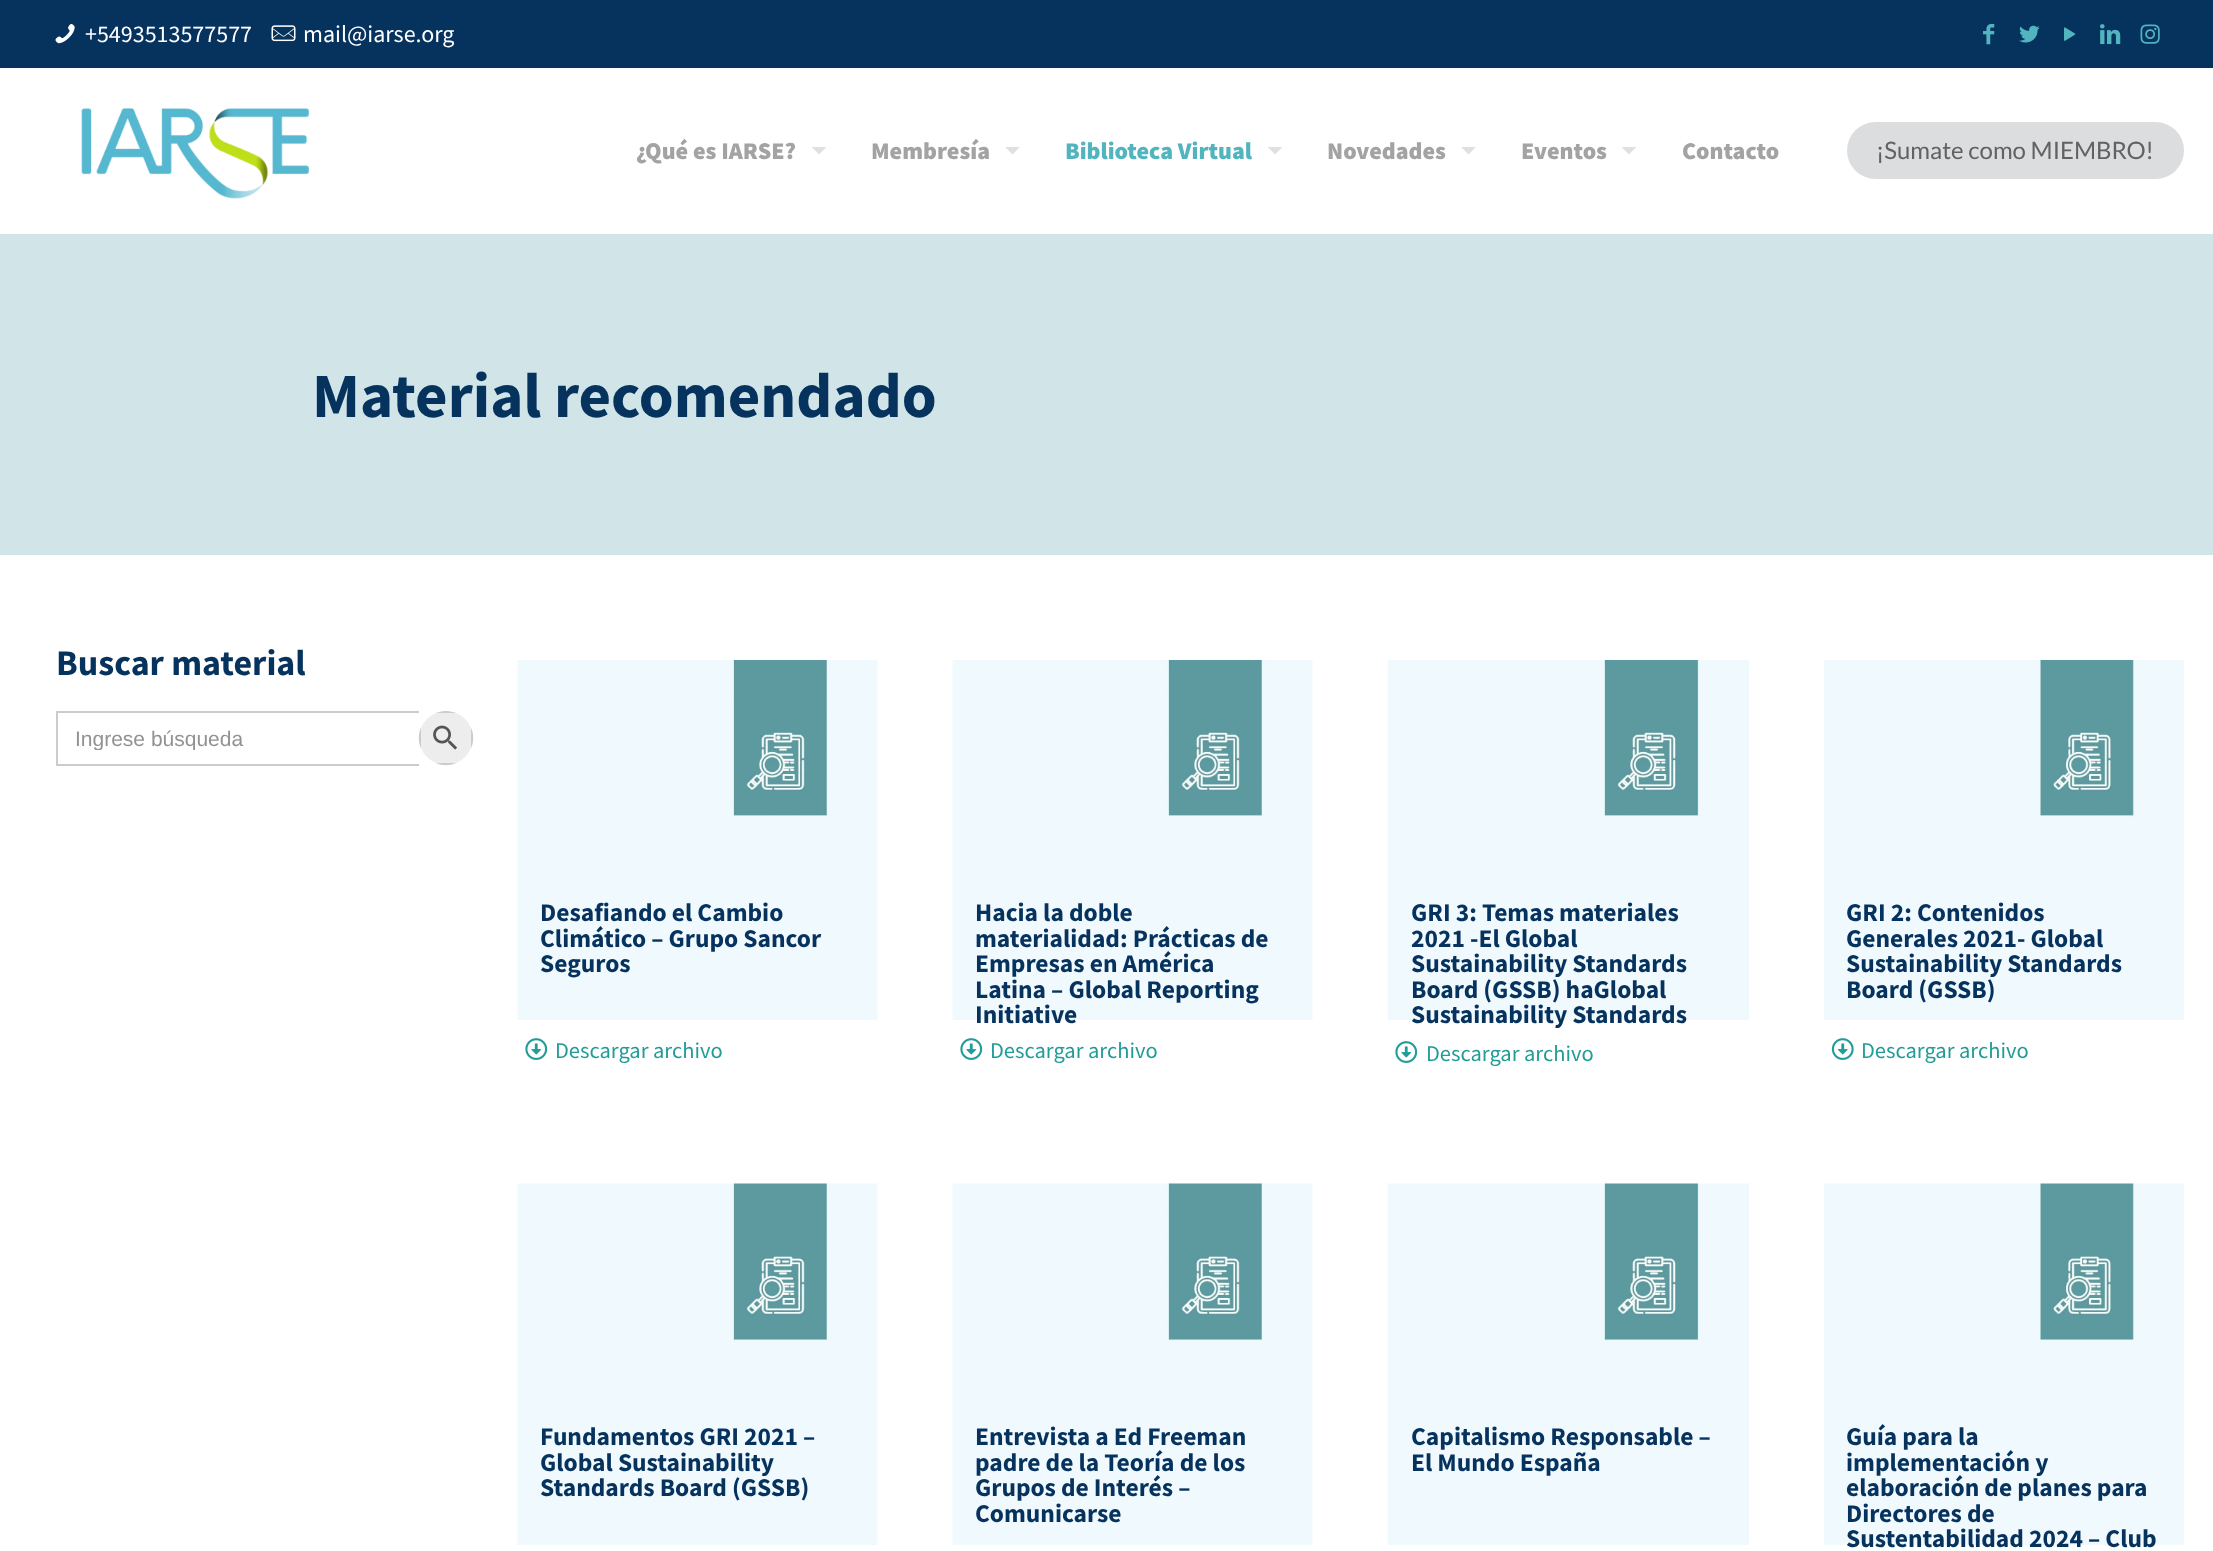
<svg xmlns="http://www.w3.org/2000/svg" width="2213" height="1551">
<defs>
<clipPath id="clip1"><rect x="75" y="726" width="326" height="24"/></clipPath>
</defs>
<rect width="100%" height="100%" fill="#fff"/>
<rect width="2213" height="68" fill="#06325e"/>
<image x="55" y="24" width="20" height="20" href="media/1.png"/>
<text x="85" y="42" style="font-family:Source Sans Pro;font-size:24px;fill:#fff">+5493513577577</text>
<image x="271" y="25" width="25" height="17" href="media/2.png"/>
<text x="303" y="42" style="font-family:Source Sans Pro;font-size:24px;fill:#fff">mail@iarse.org</text>
<image x="1983" y="24" width="12" height="21" href="media/3.png"/>
<image x="2019" y="25" width="21" height="18" href="media/4.png"/>
<image x="2064" y="27" width="12" height="14" href="media/5.png"/>
<image x="2100" y="24" width="21" height="21" href="media/6.png"/>
<image x="2140" y="24" width="20" height="20" href="media/7.png"/>
<image x="81" y="107" width="228" height="92" href="media/8.png"/>
<text x="636" y="159" style="font-family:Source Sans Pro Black;font-size:24px;font-weight:900;fill:#a3a3a3">¿Qué es IARSE?</text>
<path d="M811.5 147h15l-7.5 7.5z" fill="#e0e0e0"/>
<text x="871" y="159" style="font-family:Source Sans Pro Black;font-size:24px;font-weight:900;fill:#a3a3a3">Membresía</text>
<path d="M1005 147h15l-7.5 7.5z" fill="#e0e0e0"/>
<text x="1065" y="159" style="font-family:Source Sans Pro Black;font-size:24px;font-weight:900;fill:#51b4be">Biblioteca Virtual</text>
<path d="M1267.5 147h15l-7.5 7.5z" fill="#e0e0e0"/>
<text x="1327" y="159" style="font-family:Source Sans Pro Black;font-size:24px;font-weight:900;fill:#a3a3a3">Novedades</text>
<path d="M1461 147h15l-7.5 7.5z" fill="#e0e0e0"/>
<text x="1521" y="159" style="font-family:Source Sans Pro Black;font-size:24px;font-weight:900;fill:#a3a3a3">Eventos</text>
<path d="M1621.5 147h15l-7.5 7.5z" fill="#e0e0e0"/>
<text x="1682" y="159" style="font-family:Source Sans Pro Black;font-size:24px;font-weight:900;fill:#a3a3a3">Contacto</text>
<rect x="1847" y="122" width="337" height="57" rx="28.5" fill="#dbdddf"/>
<text x="1876" y="159" style="font-family:Lato;font-size:24px;fill:#626262">¡Sumate como MIEMBRO!</text>
<rect y="234" width="2213" height="321" fill="#d1e5e8"/>
<text x="312" y="417" style="font-family:Source Sans Pro;font-size:63px;font-weight:bold;fill:#06325e">Material recomendado</text>
<text x="56" y="675" style="font-family:Source Sans Pro;font-size:36px;font-weight:bold;fill:#06325e">Buscar material</text>
<rect x="56" y="711" width="363" height="2" fill="#ccc"/>
<rect x="56" y="764" width="363" height="2" fill="#ccc"/>
<rect x="56" y="711" width="2" height="54" fill="#ccc"/>
<g clip-path="url(#clip1)">
<text x="75" y="746" style="font-family:Liberation Sans;font-size:21px;fill:#929292">Ingrese búsqueda</text>
</g>
<circle cx="446" cy="738" r="27" fill="#ededed"/>
<path d="M446 711c-4 0-7 1-10 2h20c-3-1-6-2-10-2zm25 17c3 6 3 14 0 20zm-15 35c-6 3-14 3-20 0zm-35-15c-3-6-3-14 0-20z" fill="#ccc" fill-rule="evenodd"/>
<image x="433" y="725" width="25" height="25" href="media/9.png"/>
<image x="517" y="660" width="361" height="360" href="media/10.png"/>
<text x="540" y="921" style="font-family:Source Sans Pro;font-size:25.5px;font-weight:bold;fill:#06325e">Desafiando el Cambio</text>
<text x="540" y="947" style="font-family:Source Sans Pro;font-size:25.5px;font-weight:bold;fill:#06325e">Climático – Grupo Sancor</text>
<text x="540" y="972" style="font-family:Source Sans Pro;font-size:25.5px;font-weight:bold;fill:#06325e">Seguros</text>
<image x="525" y="1038" width="23" height="22" href="media/11.png"/>
<text x="555" y="1058" style="font-family:Source Sans Pro;font-size:22.5px;fill:#229c97">Descargar archivo</text>
<image x="952" y="660" width="361" height="360" href="media/10.png"/>
<text x="975" y="921" style="font-family:Source Sans Pro;font-size:25.5px;font-weight:bold;fill:#06325e">Hacia la doble</text>
<text x="975" y="947" style="font-family:Source Sans Pro;font-size:25.5px;font-weight:bold;fill:#06325e">materialidad: Prácticas de</text>
<text x="975" y="972" style="font-family:Source Sans Pro;font-size:25.5px;font-weight:bold;fill:#06325e">Empresas en América</text>
<text x="975" y="998" style="font-family:Source Sans Pro;font-size:25.5px;font-weight:bold;fill:#06325e">Latina – Global Reporting</text>
<text x="975" y="1023" style="font-family:Source Sans Pro;font-size:25.5px;font-weight:bold;fill:#06325e">Initiative</text>
<image x="960" y="1038" width="23" height="22" href="media/11.png"/>
<text x="990" y="1058" style="font-family:Source Sans Pro;font-size:22.5px;fill:#229c97">Descargar archivo</text>
<image x="1387" y="660" width="362" height="360" href="media/12.png"/>
<text x="1411" y="921" style="font-family:Source Sans Pro;font-size:25.5px;font-weight:bold;fill:#06325e">GRI 3: Temas materiales</text>
<text x="1411" y="947" style="font-family:Source Sans Pro;font-size:25.5px;font-weight:bold;fill:#06325e">2021 -El Global</text>
<text x="1411" y="972" style="font-family:Source Sans Pro;font-size:25.5px;font-weight:bold;fill:#06325e">Sustainability Standards</text>
<text x="1411" y="998" style="font-family:Source Sans Pro;font-size:25.5px;font-weight:bold;fill:#06325e">Board (GSSB) haGlobal</text>
<text x="1411" y="1023" style="font-family:Source Sans Pro;font-size:25.5px;font-weight:bold;fill:#06325e">Sustainability Standards</text>
<image x="1395" y="1041" width="23" height="22" href="media/11.png"/>
<text x="1426" y="1061" style="font-family:Source Sans Pro;font-size:22.5px;fill:#229c97">Descargar archivo</text>
<image x="1824" y="660" width="360" height="360" href="media/13.png"/>
<text x="1846" y="921" style="font-family:Source Sans Pro;font-size:25.5px;font-weight:bold;fill:#06325e">GRI 2: Contenidos</text>
<text x="1846" y="947" style="font-family:Source Sans Pro;font-size:25.5px;font-weight:bold;fill:#06325e">Generales 2021- Global</text>
<text x="1846" y="972" style="font-family:Source Sans Pro;font-size:25.5px;font-weight:bold;fill:#06325e">Sustainability Standards</text>
<text x="1846" y="998" style="font-family:Source Sans Pro;font-size:25.5px;font-weight:bold;fill:#06325e">Board (GSSB)</text>
<image x="1831" y="1038" width="23" height="22" href="media/14.png"/>
<text x="1861" y="1058" style="font-family:Source Sans Pro;font-size:22.5px;fill:#229c97">Descargar archivo</text>
<image x="517" y="1183" width="361" height="362" href="media/15.png"/>
<text x="540" y="1445" style="font-family:Source Sans Pro;font-size:25.5px;font-weight:bold;fill:#06325e">Fundamentos GRI 2021 –</text>
<text x="540" y="1471" style="font-family:Source Sans Pro;font-size:25.5px;font-weight:bold;fill:#06325e">Global Sustainability</text>
<text x="540" y="1496" style="font-family:Source Sans Pro;font-size:25.5px;font-weight:bold;fill:#06325e">Standards Board (GSSB)</text>
<image x="952" y="1183" width="361" height="362" href="media/15.png"/>
<text x="975" y="1445" style="font-family:Source Sans Pro;font-size:25.5px;font-weight:bold;fill:#06325e">Entrevista a Ed Freeman</text>
<text x="975" y="1471" style="font-family:Source Sans Pro;font-size:25.5px;font-weight:bold;fill:#06325e">padre de la Teoría de los</text>
<text x="975" y="1496" style="font-family:Source Sans Pro;font-size:25.5px;font-weight:bold;fill:#06325e">Grupos de Interés –</text>
<text x="975" y="1522" style="font-family:Source Sans Pro;font-size:25.5px;font-weight:bold;fill:#06325e">Comunicarse</text>
<image x="1387" y="1183" width="362" height="362" href="media/16.png"/>
<text x="1411" y="1445" style="font-family:Source Sans Pro;font-size:25.5px;font-weight:bold;fill:#06325e">Capitalismo Responsable –</text>
<text x="1411" y="1471" style="font-family:Source Sans Pro;font-size:25.5px;font-weight:bold;fill:#06325e">El Mundo España</text>
<image x="1824" y="1183" width="360" height="362" href="media/17.png"/>
<text x="1846" y="1445" style="font-family:Source Sans Pro;font-size:25.5px;font-weight:bold;fill:#06325e">Guía para la</text>
<text x="1846" y="1471" style="font-family:Source Sans Pro;font-size:25.5px;font-weight:bold;fill:#06325e">implementación y</text>
<text x="1846" y="1496" style="font-family:Source Sans Pro;font-size:25.5px;font-weight:bold;fill:#06325e">elaboración de planes para</text>
<text x="1846" y="1522" style="font-family:Source Sans Pro;font-size:25.5px;font-weight:bold;fill:#06325e">Directores de</text>
<text x="1846" y="1547" style="font-family:Source Sans Pro;font-size:25.5px;font-weight:bold;fill:#06325e">Sustentabilidad 2024 – Club</text>
</svg>
